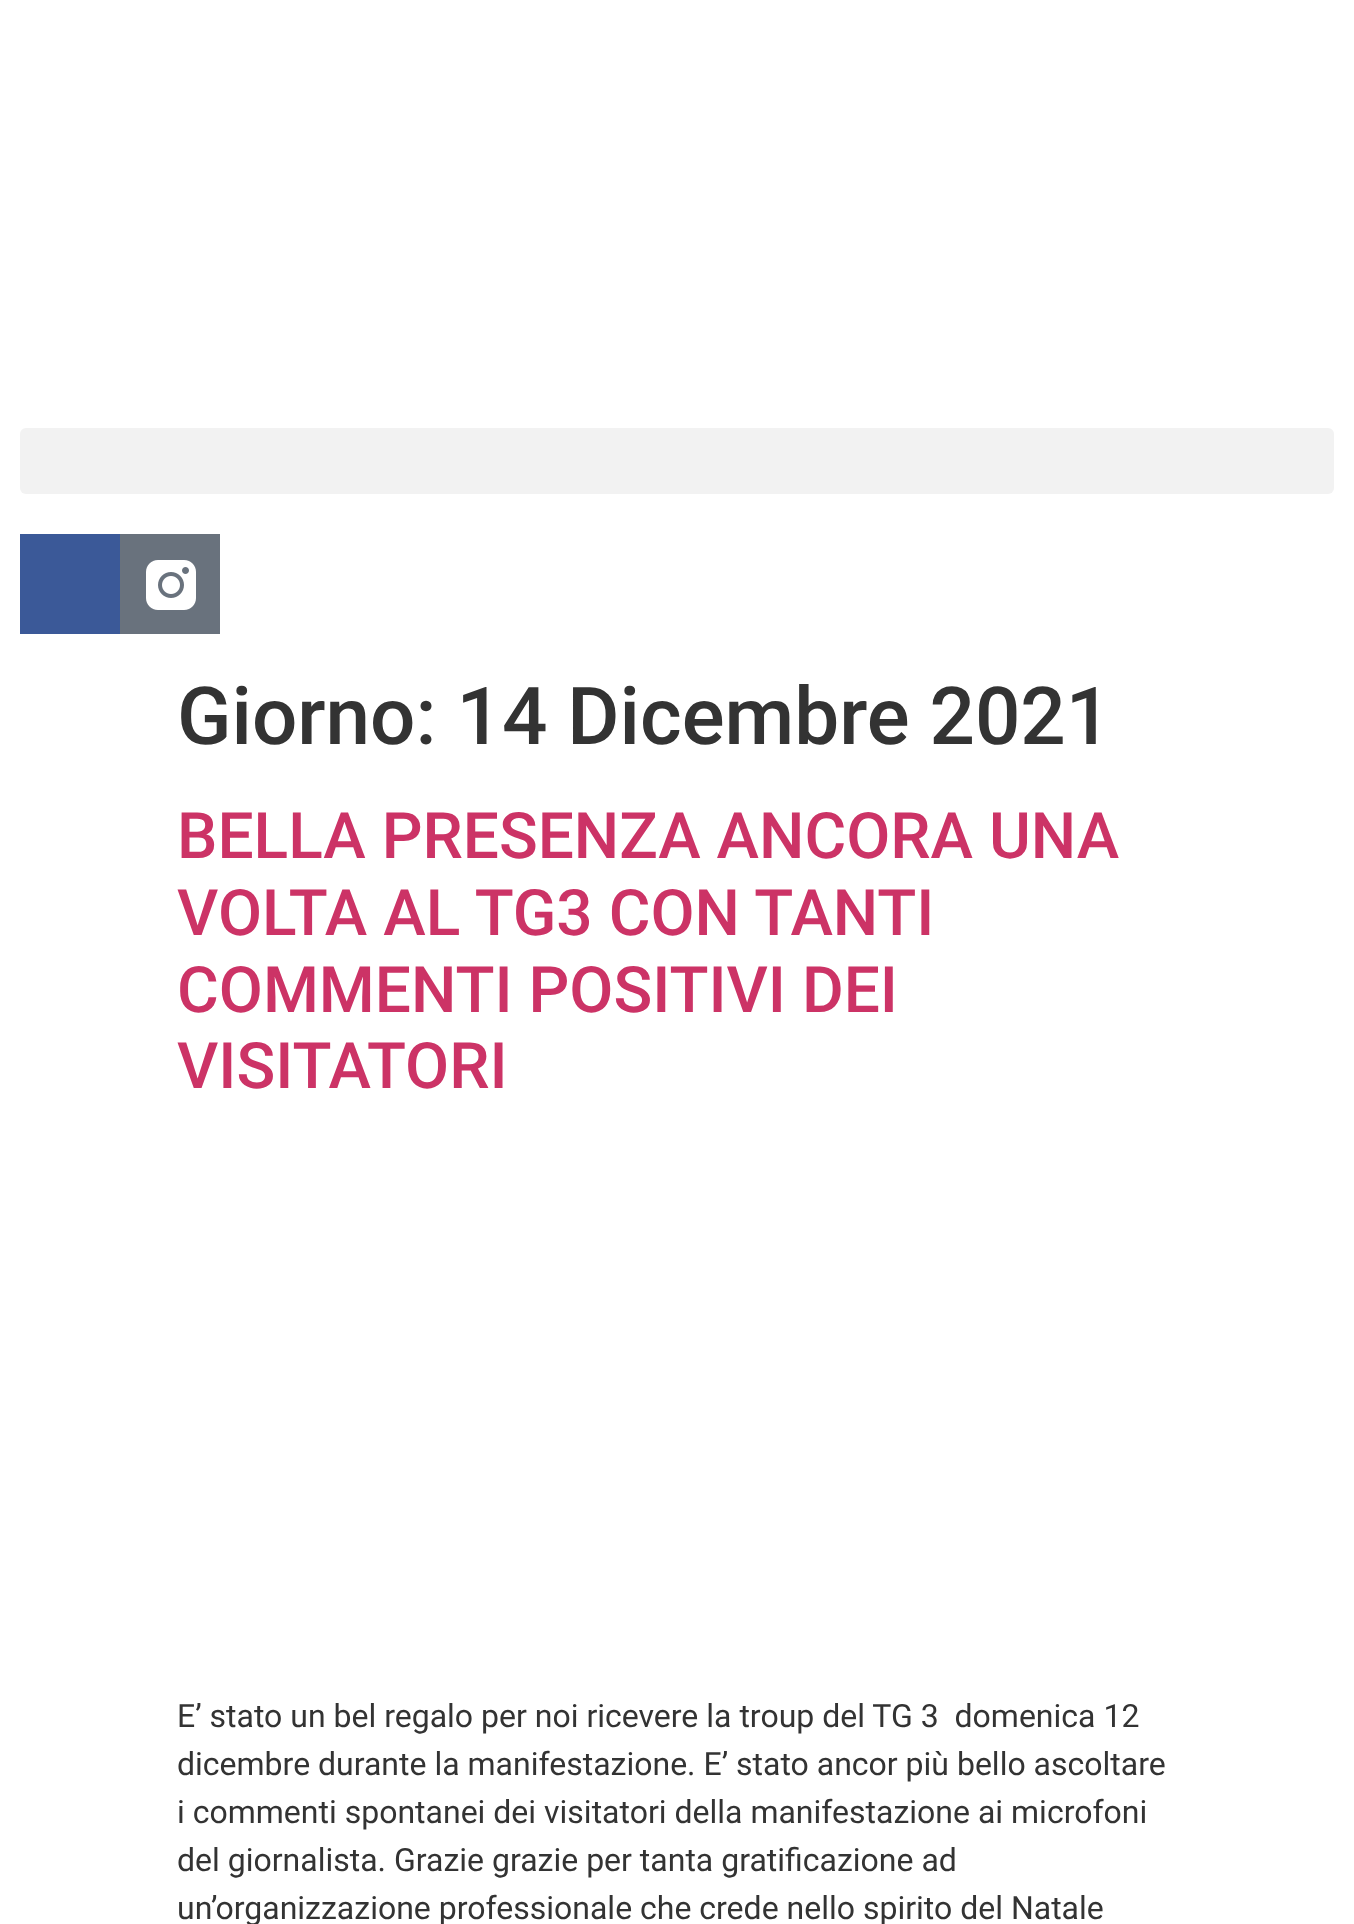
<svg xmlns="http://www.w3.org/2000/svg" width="1354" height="1924">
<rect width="100%" height="100%" fill="#fff"/>
<rect x="20" y="428" width="1314" height="66" rx="6" fill="#f2f2f2"/>
<rect x="20" y="534" width="100" height="100" fill="#3b5998"/>
<rect x="120" y="534" width="100" height="100" fill="#69727d"/>
<image x="146" y="560" width="50" height="50" href="media/1.png"/>
<text x="177" y="744" style="font-family:Roboto;font-size:80px;font-weight:500;fill:#333">Giorno: 14 Dicembre 2021</text>
<text x="177" y="858" style="font-family:Roboto;font-size:64px;font-weight:500;fill:#c36">BELLA PRESENZA ANCORA UNA</text>
<text x="177" y="935" style="font-family:Roboto;font-size:64px;font-weight:500;fill:#c36">VOLTA AL TG3 CON TANTI</text>
<text x="177" y="1012" style="font-family:Roboto;font-size:64px;font-weight:500;fill:#c36">COMMENTI POSITIVI DEI</text>
<text x="177" y="1088" style="font-family:Roboto;font-size:64px;font-weight:500;fill:#c36">VISITATORI</text>
<text x="177" y="1727" style="font-family:Roboto;font-size:32px;fill:#333" xml:space="preserve">E’ stato un bel regalo per noi ricevere la troup del TG 3  domenica 12</text>
<text x="177" y="1775" style="font-family:Roboto;font-size:32px;fill:#333">dicembre durante la manifestazione. E’ stato ancor più bello ascoltare</text>
<text x="177" y="1823" style="font-family:Roboto;font-size:32px;fill:#333">i commenti spontanei dei visitatori della manifestazione ai microfoni</text>
<text x="177" y="1871" style="font-family:Roboto;font-size:32px;fill:#333">del giornalista. Grazie grazie per tanta gratificazione ad</text>
<text x="177" y="1919" style="font-family:Roboto;font-size:32px;fill:#333">un’organizzazione professionale che crede nello spirito del Natale</text>
</svg>
